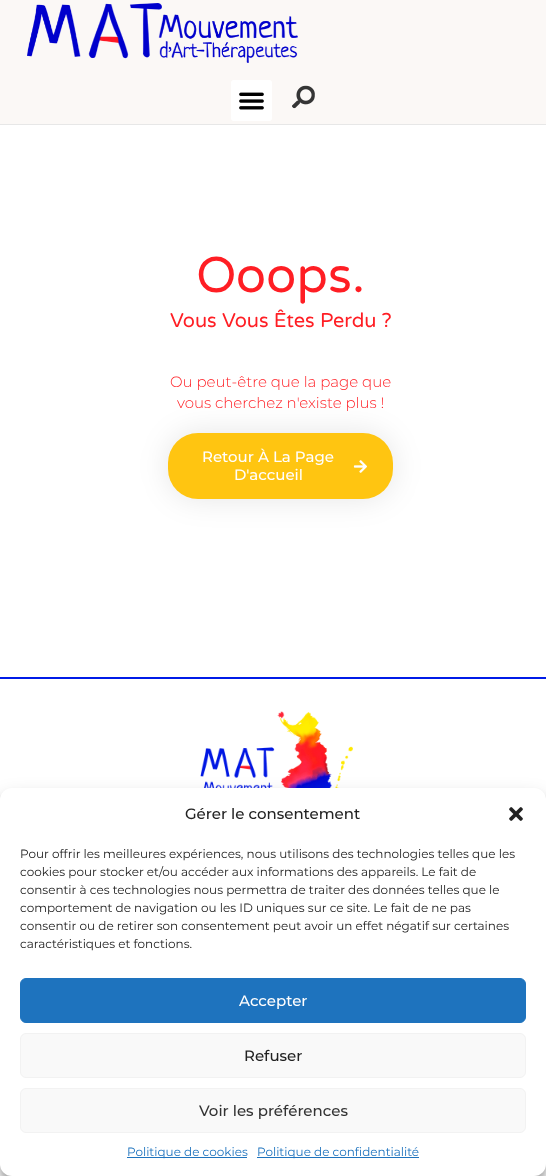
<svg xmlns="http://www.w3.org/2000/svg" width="546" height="1176">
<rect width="100%" height="100%" fill="#fff"/>
<rect width="546" height="124" fill="#fbf8f6"/>
<rect y="124" width="546" height="1" fill="#e7e7e7"/>
<image x="27" y="3" width="271" height="60" href="media/1.png"/>
<rect x="231" y="80" width="41" height="41" rx="3" fill="#fff"/>
<image x="239" y="92" width="25" height="18" href="media/2.png"/>
<image x="292" y="85" width="23" height="24" href="media/3.png"/>
<text x="196" y="292" style="font-family:Varela Round;font-size:50px;fill:#ff1e24">Ooops.</text>
<text x="170" y="327" style="font-family:Varela Round;font-size:20px;fill:#ff1e24">Vous Vous Êtes Perdu ?</text>
<text x="170" y="387" style="font-family:Montserrat;font-size:15px;font-weight:300;fill:#ff1e24">Ou peut-être que la page que</text>
<text x="177" y="408" style="font-family:Montserrat;font-size:15px;font-weight:300;fill:#ff1e24">vous cherchez n'existe plus !</text>
<rect x="168" y="433" width="225" height="66" rx="30" fill="#0000001a" filter="blur(15px)"/>
<rect x="168" y="433" width="225" height="66" rx="30" fill="#ffc511"/>
<text x="202" y="462" style="font-family:Montserrat;font-size:15px;font-weight:500;fill:#fffefe">Retour À La Page</text>
<text x="234" y="480" style="font-family:Montserrat;font-size:15px;font-weight:500;fill:#fffefe">D'accueil</text>
<image x="353" y="460" width="14" height="13" href="media/4.png"/>
<rect y="677" width="546" height="2" fill="#001be7"/>
<image x="200" y="711" width="153" height="77" href="media/5.png"/>
<rect y="794" width="546" height="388" rx="12" fill="#0000003b" filter="blur(3px)"/>
<rect y="798" width="546" height="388" rx="12" fill="#00000030" filter="blur(10px)"/>
<rect y="788" width="546" height="388" rx="12" fill="#fff"/>
<text x="185" y="819" style="font-family:Montserrat;font-size:15px;font-weight:500;fill:#222">Gérer le consentement</text>
<image x="509" y="807" width="14" height="14" href="media/6.png"/>
<text x="20" y="858" style="font-family:Montserrat;font-size:12px;fill:#222">Pour offrir les meilleures expériences, nous utilisons des technologies telles que les</text>
<text x="20" y="876" style="font-family:Montserrat;font-size:12px;fill:#222">cookies pour stocker et/ou accéder aux informations des appareils. Le fait de</text>
<text x="20" y="894" style="font-family:Montserrat;font-size:12px;fill:#222">consentir à ces technologies nous permettra de traiter des données telles que le</text>
<text x="20" y="912" style="font-family:Montserrat;font-size:12px;fill:#222">comportement de navigation ou les ID uniques sur ce site. Le fait de ne pas</text>
<text x="20" y="930" style="font-family:Montserrat;font-size:12px;fill:#222">consentir ou de retirer son consentement peut avoir un effet négatif sur certaines</text>
<text x="20" y="948" style="font-family:Montserrat;font-size:12px;fill:#222">caractéristiques et fonctions.</text>
<rect x="20.5" y="978.5" width="505" height="44" rx="5.5" fill="#1e73be" stroke="#1e73be"/>
<text x="239" y="1006" style="font-family:Montserrat;font-size:15px;font-weight:500;fill:#fffefe">Accepter</text>
<rect x="20.5" y="1033.5" width="505" height="44" rx="5.5" fill="#f9f9f9" stroke="#f2f2f2"/>
<text x="244" y="1061" style="font-family:Montserrat;font-size:15px;font-weight:500;fill:#222">Refuser</text>
<rect x="20.5" y="1088.5" width="505" height="44" rx="5.5" fill="#f9f9f9" stroke="#f2f2f2"/>
<text x="199" y="1116" style="font-family:Montserrat;font-size:15px;font-weight:500;fill:#333">Voir les préférences</text>
<rect x="127" y="1157" width="120" height="1" fill="#1e73be"/>
<text x="127" y="1156" style="font-family:Montserrat;font-size:12px;fill:#1e73be">Politique de cookies</text>
<rect x="257" y="1157" width="162" height="1" fill="#1e73be"/>
<text x="257" y="1156" style="font-family:Montserrat;font-size:12px;fill:#1e73be">Politique de confidentialité</text>
</svg>
